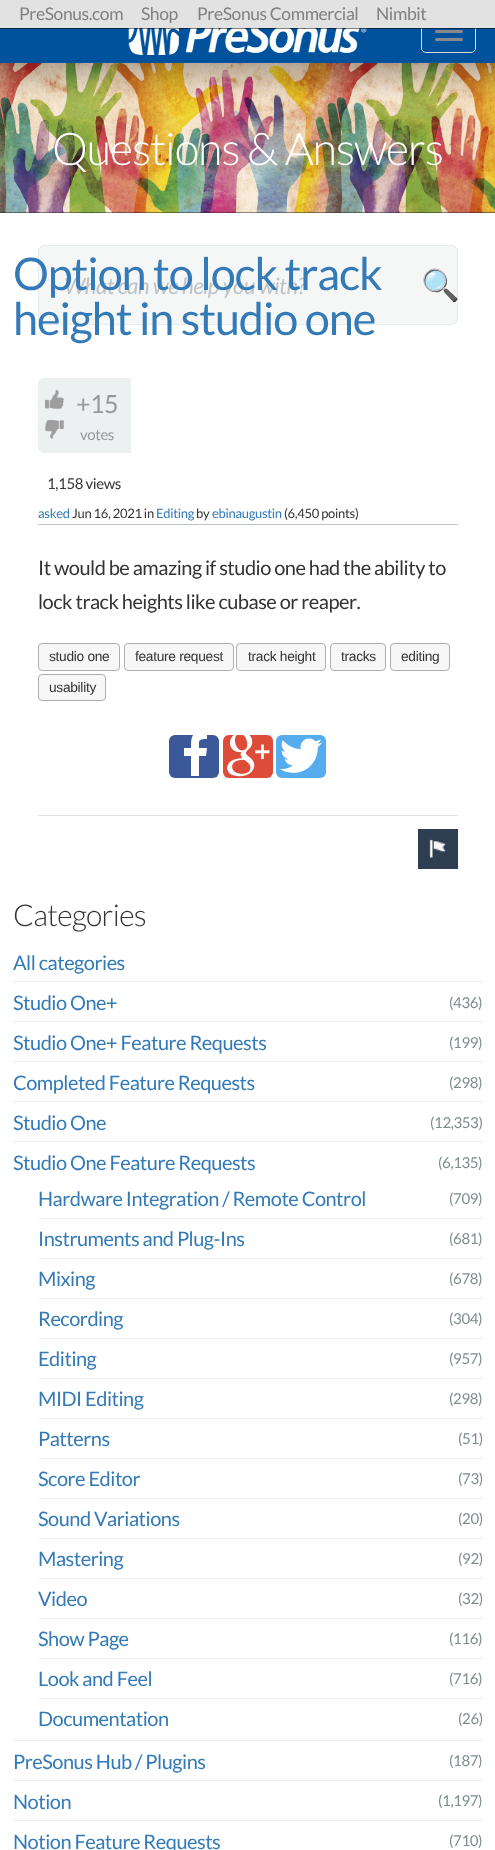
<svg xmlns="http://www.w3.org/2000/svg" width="495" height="1850">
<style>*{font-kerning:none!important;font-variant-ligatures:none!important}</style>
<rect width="100%" height="100%" fill="#fff"/>
<rect y="28" width="495" height="35" fill="#00529c"/>
<image x="128" y="28" width="239" height="27" href="media/1.png"/>
<rect x="421.5" y="10.5" width="54" height="42" rx="4.5" fill="none" stroke="#ddd"/>
<rect x="435" y="30" width="28" height="3" rx="1.5" fill="#888"/>
<rect x="-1" y="-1" width="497" height="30" fill="#00000080" filter="blur(0.5px)"/>
<rect width="495" height="28" fill="#e2e2e2"/>
<text x="19" y="20" style="font-family:Lato;font-size:17.5px;letter-spacing:-0.4px;fill:#808080">PreSonus.com</text>
<text x="141" y="20" style="font-family:Lato;font-size:17.5px;letter-spacing:-0.4px;fill:#808080">Shop</text>
<text x="197" y="20" style="font-family:Lato;font-size:17.5px;letter-spacing:-0.4px;fill:#808080">PreSonus Commercial</text>
<text x="376" y="20" style="font-family:Lato;font-size:17.5px;letter-spacing:-0.4px;fill:#808080">Nimbit</text>
<rect x="435" y="38" width="28" height="3" rx="1.5" fill="#888"/>
<rect y="212" width="495" height="1" fill="#222"/>
<image x="0" y="63" width="495" height="150" href="media/2.png"/>
<text x="52" y="165" style="font-family:Lato;font-size:45px;font-weight:300;letter-spacing:-1.1px;fill:#fefefe">Questions &amp; Answers</text>
<rect x="38.5" y="245.5" width="419" height="79" rx="5.5" fill="#f5f7f7" stroke="#e6ebed"/>
<text x="64" y="294" style="font-family:Lato;font-size:22.5px;font-style:italic;letter-spacing:-0.55px;fill:#bdc3c7">What can we help you with?</text>
<text x="421" y="296" style="font-family:Noto Color Emoji;font-size:31px;letter-spacing:-0.4px;fill:#ccc">🔍</text>
<text x="13" y="290" style="font-family:Lato;font-size:45px;letter-spacing:-1.1px;fill:#337ab7">Option to lock track</text>
<text x="13" y="335" style="font-family:Lato;font-size:45px;letter-spacing:-1.1px;fill:#337ab7">height in studio one</text>
<path d="M44 378h87v75h-87c-3.5 0-6-2.5-6-6v-63c0-3.5 2.5-6 6-6z" fill="#ecf0f1"/>
<image x="45" y="390" width="19" height="19" href="media/3.png"/>
<image x="45" y="420" width="19" height="19" href="media/4.png"/>
<text x="76" y="413" style="font-family:Lato;font-size:25px;letter-spacing:-0.5px;fill:#999">+15</text>
<text x="80" y="440" style="font-family:Lato;font-size:15px;letter-spacing:-0.4px;fill:#999">votes</text>
<text x="47" y="489" style="font-family:Lato;font-size:15px;letter-spacing:-0.4px;fill:#333">1,158 views</text>
<rect x="38" y="524" width="420" height="1" fill="#bdc3c7"/>
<text x="38" y="518" style="font-family:Lato;font-size:13px;letter-spacing:-0.3px;fill:#337ab7">asked</text>
<text x="72" y="518" style="font-family:Lato;font-size:13px;letter-spacing:-0.3px;fill:#333">Jun 16, 2021 in</text>
<text x="156" y="518" style="font-family:Lato;font-size:13px;letter-spacing:-0.3px;fill:#337ab7">Editing</text>
<text x="196" y="518" style="font-family:Lato;font-size:13px;letter-spacing:-0.3px;fill:#333">by</text>
<text x="212" y="518" style="font-family:Lato;font-size:13px;letter-spacing:-0.3px;fill:#337ab7">ebinaugustin</text>
<text x="284" y="518" style="font-family:Lato;font-size:13px;letter-spacing:-0.3px;fill:#333">(6,450 points)</text>
<text x="38" y="575" style="font-family:Lato;font-size:20px;letter-spacing:-0.5px;fill:#333">It would be amazing if studio one had the ability to</text>
<text x="38" y="609" style="font-family:Lato;font-size:20px;letter-spacing:-0.5px;fill:#333">lock track heights like cubase or reaper.</text>
<rect x="38.5" y="643.5" width="81" height="27" rx="3.5" fill="#f7f7f7" stroke="#aeaeae"/>
<text x="49" y="661" style="font-family:Liberation Sans;font-size:13.75px;letter-spacing:-0.3px;fill:#333">studio one</text>
<rect x="124.5" y="643.5" width="109" height="27" rx="3.5" fill="#f7f7f7" stroke="#aeaeae"/>
<text x="135" y="661" style="font-family:Liberation Sans;font-size:13.75px;letter-spacing:-0.3px;fill:#333">feature request</text>
<rect x="236.5" y="643.5" width="89" height="27" rx="3.5" fill="#f7f7f7" stroke="#aeaeae"/>
<text x="248" y="661" style="font-family:Liberation Sans;font-size:13.75px;letter-spacing:-0.3px;fill:#333">track height</text>
<rect x="330.5" y="643.5" width="55" height="27" rx="3.5" fill="#f7f7f7" stroke="#aeaeae"/>
<text x="341" y="661" style="font-family:Liberation Sans;font-size:13.75px;letter-spacing:-0.3px;fill:#333">tracks</text>
<rect x="390.5" y="643.5" width="59" height="27" rx="3.5" fill="#f7f7f7" stroke="#aeaeae"/>
<text x="401" y="661" style="font-family:Liberation Sans;font-size:13.75px;letter-spacing:-0.3px;fill:#333">editing</text>
<rect x="38.5" y="674.5" width="67" height="26" rx="3.5" fill="#f7f7f7" stroke="#aeaeae"/>
<text x="49" y="692" style="font-family:Liberation Sans;font-size:13.75px;letter-spacing:-0.3px;fill:#333">usability</text>
<rect x="169" y="735" width="50" height="43" rx="6" fill="#3b5998"/>
<path d="M207 735v4c-9 0-8 1-8 9h8l-1 8h-7v20h-8v-20h-7v-8h7c0-6 0-10 2-13z" fill="#fff"/>
<rect x="223" y="735" width="50" height="43" rx="6" fill="#dd4b39"/>
<image x="227" y="735" width="43" height="42" href="media/5.png"/>
<rect x="276" y="735" width="50" height="43" rx="6" fill="#55acee"/>
<image x="280" y="738" width="42" height="35" href="media/6.png"/>
<rect x="38" y="815" width="420" height="1" fill="#dee1e3"/>
<rect x="418" y="829" width="40" height="40" fill="#2c3e50"/>
<image x="429" y="839" width="17" height="19" href="media/7.png"/>
<text x="13" y="926" style="font-family:Lato;font-size:30px;font-weight:300;letter-spacing:-0.75px;fill:#333">Categories</text>
<rect x="13" y="981" width="470" height="1" fill="#ecf0f1"/>
<text x="13" y="970" style="font-family:Lato;font-size:20px;letter-spacing:-0.5px;fill:#337ab7">All categories</text>
<rect x="13" y="1021" width="470" height="1" fill="#ecf0f1"/>
<text x="13" y="1010" style="font-family:Lato;font-size:20px;letter-spacing:-0.5px;fill:#337ab7">Studio One+</text>
<text x="449" y="1008" style="font-family:Lato;font-size:15px;letter-spacing:-0.4px;fill:#7f8c8d">(436)</text>
<rect x="13" y="1061" width="470" height="1" fill="#ecf0f1"/>
<text x="13" y="1050" style="font-family:Lato;font-size:20px;letter-spacing:-0.5px;fill:#337ab7">Studio One+ Feature Requests</text>
<text x="449" y="1048" style="font-family:Lato;font-size:15px;letter-spacing:-0.4px;fill:#7f8c8d">(199)</text>
<rect x="13" y="1101" width="470" height="1" fill="#ecf0f1"/>
<text x="13" y="1090" style="font-family:Lato;font-size:20px;letter-spacing:-0.5px;fill:#337ab7">Completed Feature Requests</text>
<text x="449" y="1088" style="font-family:Lato;font-size:15px;letter-spacing:-0.4px;fill:#7f8c8d">(298)</text>
<rect x="13" y="1141" width="470" height="1" fill="#ecf0f1"/>
<text x="13" y="1130" style="font-family:Lato;font-size:20px;letter-spacing:-0.5px;fill:#337ab7">Studio One</text>
<text x="430" y="1128" style="font-family:Lato;font-size:15px;letter-spacing:-0.4px;fill:#7f8c8d">(12,353)</text>
<rect x="13" y="1740" width="470" height="1" fill="#ecf0f1"/>
<text x="13" y="1170" style="font-family:Lato;font-size:20px;letter-spacing:-0.5px;fill:#337ab7">Studio One Feature Requests</text>
<text x="438" y="1168" style="font-family:Lato;font-size:15px;letter-spacing:-0.4px;fill:#7f8c8d">(6,135)</text>
<rect x="38" y="1218" width="445" height="1" fill="#ecf0f1"/>
<text x="38" y="1206" style="font-family:Lato;font-size:20px;letter-spacing:-0.5px;fill:#337ab7">Hardware Integration / Remote Control</text>
<text x="449" y="1204" style="font-family:Lato;font-size:15px;letter-spacing:-0.4px;fill:#7f8c8d">(709)</text>
<rect x="38" y="1258" width="445" height="1" fill="#ecf0f1"/>
<text x="38" y="1246" style="font-family:Lato;font-size:20px;letter-spacing:-0.5px;fill:#337ab7">Instruments and Plug-Ins</text>
<text x="449" y="1244" style="font-family:Lato;font-size:15px;letter-spacing:-0.4px;fill:#7f8c8d">(681)</text>
<rect x="38" y="1298" width="445" height="1" fill="#ecf0f1"/>
<text x="38" y="1286" style="font-family:Lato;font-size:20px;letter-spacing:-0.5px;fill:#337ab7">Mixing</text>
<text x="449" y="1284" style="font-family:Lato;font-size:15px;letter-spacing:-0.4px;fill:#7f8c8d">(678)</text>
<rect x="38" y="1338" width="445" height="1" fill="#ecf0f1"/>
<text x="38" y="1326" style="font-family:Lato;font-size:20px;letter-spacing:-0.5px;fill:#337ab7">Recording</text>
<text x="449" y="1324" style="font-family:Lato;font-size:15px;letter-spacing:-0.4px;fill:#7f8c8d">(304)</text>
<rect x="38" y="1378" width="445" height="1" fill="#ecf0f1"/>
<text x="38" y="1366" style="font-family:Lato;font-size:20px;letter-spacing:-0.5px;fill:#337ab7">Editing</text>
<text x="449" y="1364" style="font-family:Lato;font-size:15px;letter-spacing:-0.4px;fill:#7f8c8d">(957)</text>
<rect x="38" y="1418" width="445" height="1" fill="#ecf0f1"/>
<text x="38" y="1406" style="font-family:Lato;font-size:20px;letter-spacing:-0.5px;fill:#337ab7">MIDI Editing</text>
<text x="449" y="1404" style="font-family:Lato;font-size:15px;letter-spacing:-0.4px;fill:#7f8c8d">(298)</text>
<rect x="38" y="1458" width="445" height="1" fill="#ecf0f1"/>
<text x="38" y="1446" style="font-family:Lato;font-size:20px;letter-spacing:-0.5px;fill:#337ab7">Patterns</text>
<text x="458" y="1444" style="font-family:Lato;font-size:15px;letter-spacing:-0.4px;fill:#7f8c8d">(51)</text>
<rect x="38" y="1498" width="445" height="1" fill="#ecf0f1"/>
<text x="38" y="1486" style="font-family:Lato;font-size:20px;letter-spacing:-0.5px;fill:#337ab7">Score Editor</text>
<text x="458" y="1484" style="font-family:Lato;font-size:15px;letter-spacing:-0.4px;fill:#7f8c8d">(73)</text>
<rect x="38" y="1538" width="445" height="1" fill="#ecf0f1"/>
<text x="38" y="1526" style="font-family:Lato;font-size:20px;letter-spacing:-0.5px;fill:#337ab7">Sound Variations</text>
<text x="458" y="1524" style="font-family:Lato;font-size:15px;letter-spacing:-0.4px;fill:#7f8c8d">(20)</text>
<rect x="38" y="1578" width="445" height="1" fill="#ecf0f1"/>
<text x="38" y="1566" style="font-family:Lato;font-size:20px;letter-spacing:-0.5px;fill:#337ab7">Mastering</text>
<text x="458" y="1564" style="font-family:Lato;font-size:15px;letter-spacing:-0.4px;fill:#7f8c8d">(92)</text>
<rect x="38" y="1618" width="445" height="1" fill="#ecf0f1"/>
<text x="38" y="1606" style="font-family:Lato;font-size:20px;letter-spacing:-0.5px;fill:#337ab7">Video</text>
<text x="458" y="1604" style="font-family:Lato;font-size:15px;letter-spacing:-0.4px;fill:#7f8c8d">(32)</text>
<rect x="38" y="1658" width="445" height="1" fill="#ecf0f1"/>
<text x="38" y="1646" style="font-family:Lato;font-size:20px;letter-spacing:-0.5px;fill:#337ab7">Show Page</text>
<text x="449" y="1644" style="font-family:Lato;font-size:15px;letter-spacing:-0.4px;fill:#7f8c8d">(116)</text>
<rect x="38" y="1698" width="445" height="1" fill="#ecf0f1"/>
<text x="38" y="1686" style="font-family:Lato;font-size:20px;letter-spacing:-0.5px;fill:#337ab7">Look and Feel</text>
<text x="449" y="1684" style="font-family:Lato;font-size:15px;letter-spacing:-0.4px;fill:#7f8c8d">(716)</text>
<text x="38" y="1726" style="font-family:Lato;font-size:20px;letter-spacing:-0.5px;fill:#337ab7">Documentation</text>
<text x="458" y="1724" style="font-family:Lato;font-size:15px;letter-spacing:-0.4px;fill:#7f8c8d">(26)</text>
<rect x="13" y="1780" width="470" height="1" fill="#ecf0f1"/>
<text x="13" y="1769" style="font-family:Lato;font-size:20px;letter-spacing:-0.5px;fill:#337ab7">PreSonus Hub / Plugins</text>
<text x="449" y="1766" style="font-family:Lato;font-size:15px;letter-spacing:-0.4px;fill:#7f8c8d">(187)</text>
<rect x="13" y="1820" width="470" height="1" fill="#ecf0f1"/>
<text x="13" y="1809" style="font-family:Lato;font-size:20px;letter-spacing:-0.5px;fill:#337ab7">Notion</text>
<text x="438" y="1806" style="font-family:Lato;font-size:15px;letter-spacing:-0.4px;fill:#7f8c8d">(1,197)</text>
<text x="13" y="1849" style="font-family:Lato;font-size:20px;letter-spacing:-0.5px;fill:#337ab7">Notion Feature Requests</text>
<text x="449" y="1846" style="font-family:Lato;font-size:15px;letter-spacing:-0.4px;fill:#7f8c8d">(710)</text>
</svg>
